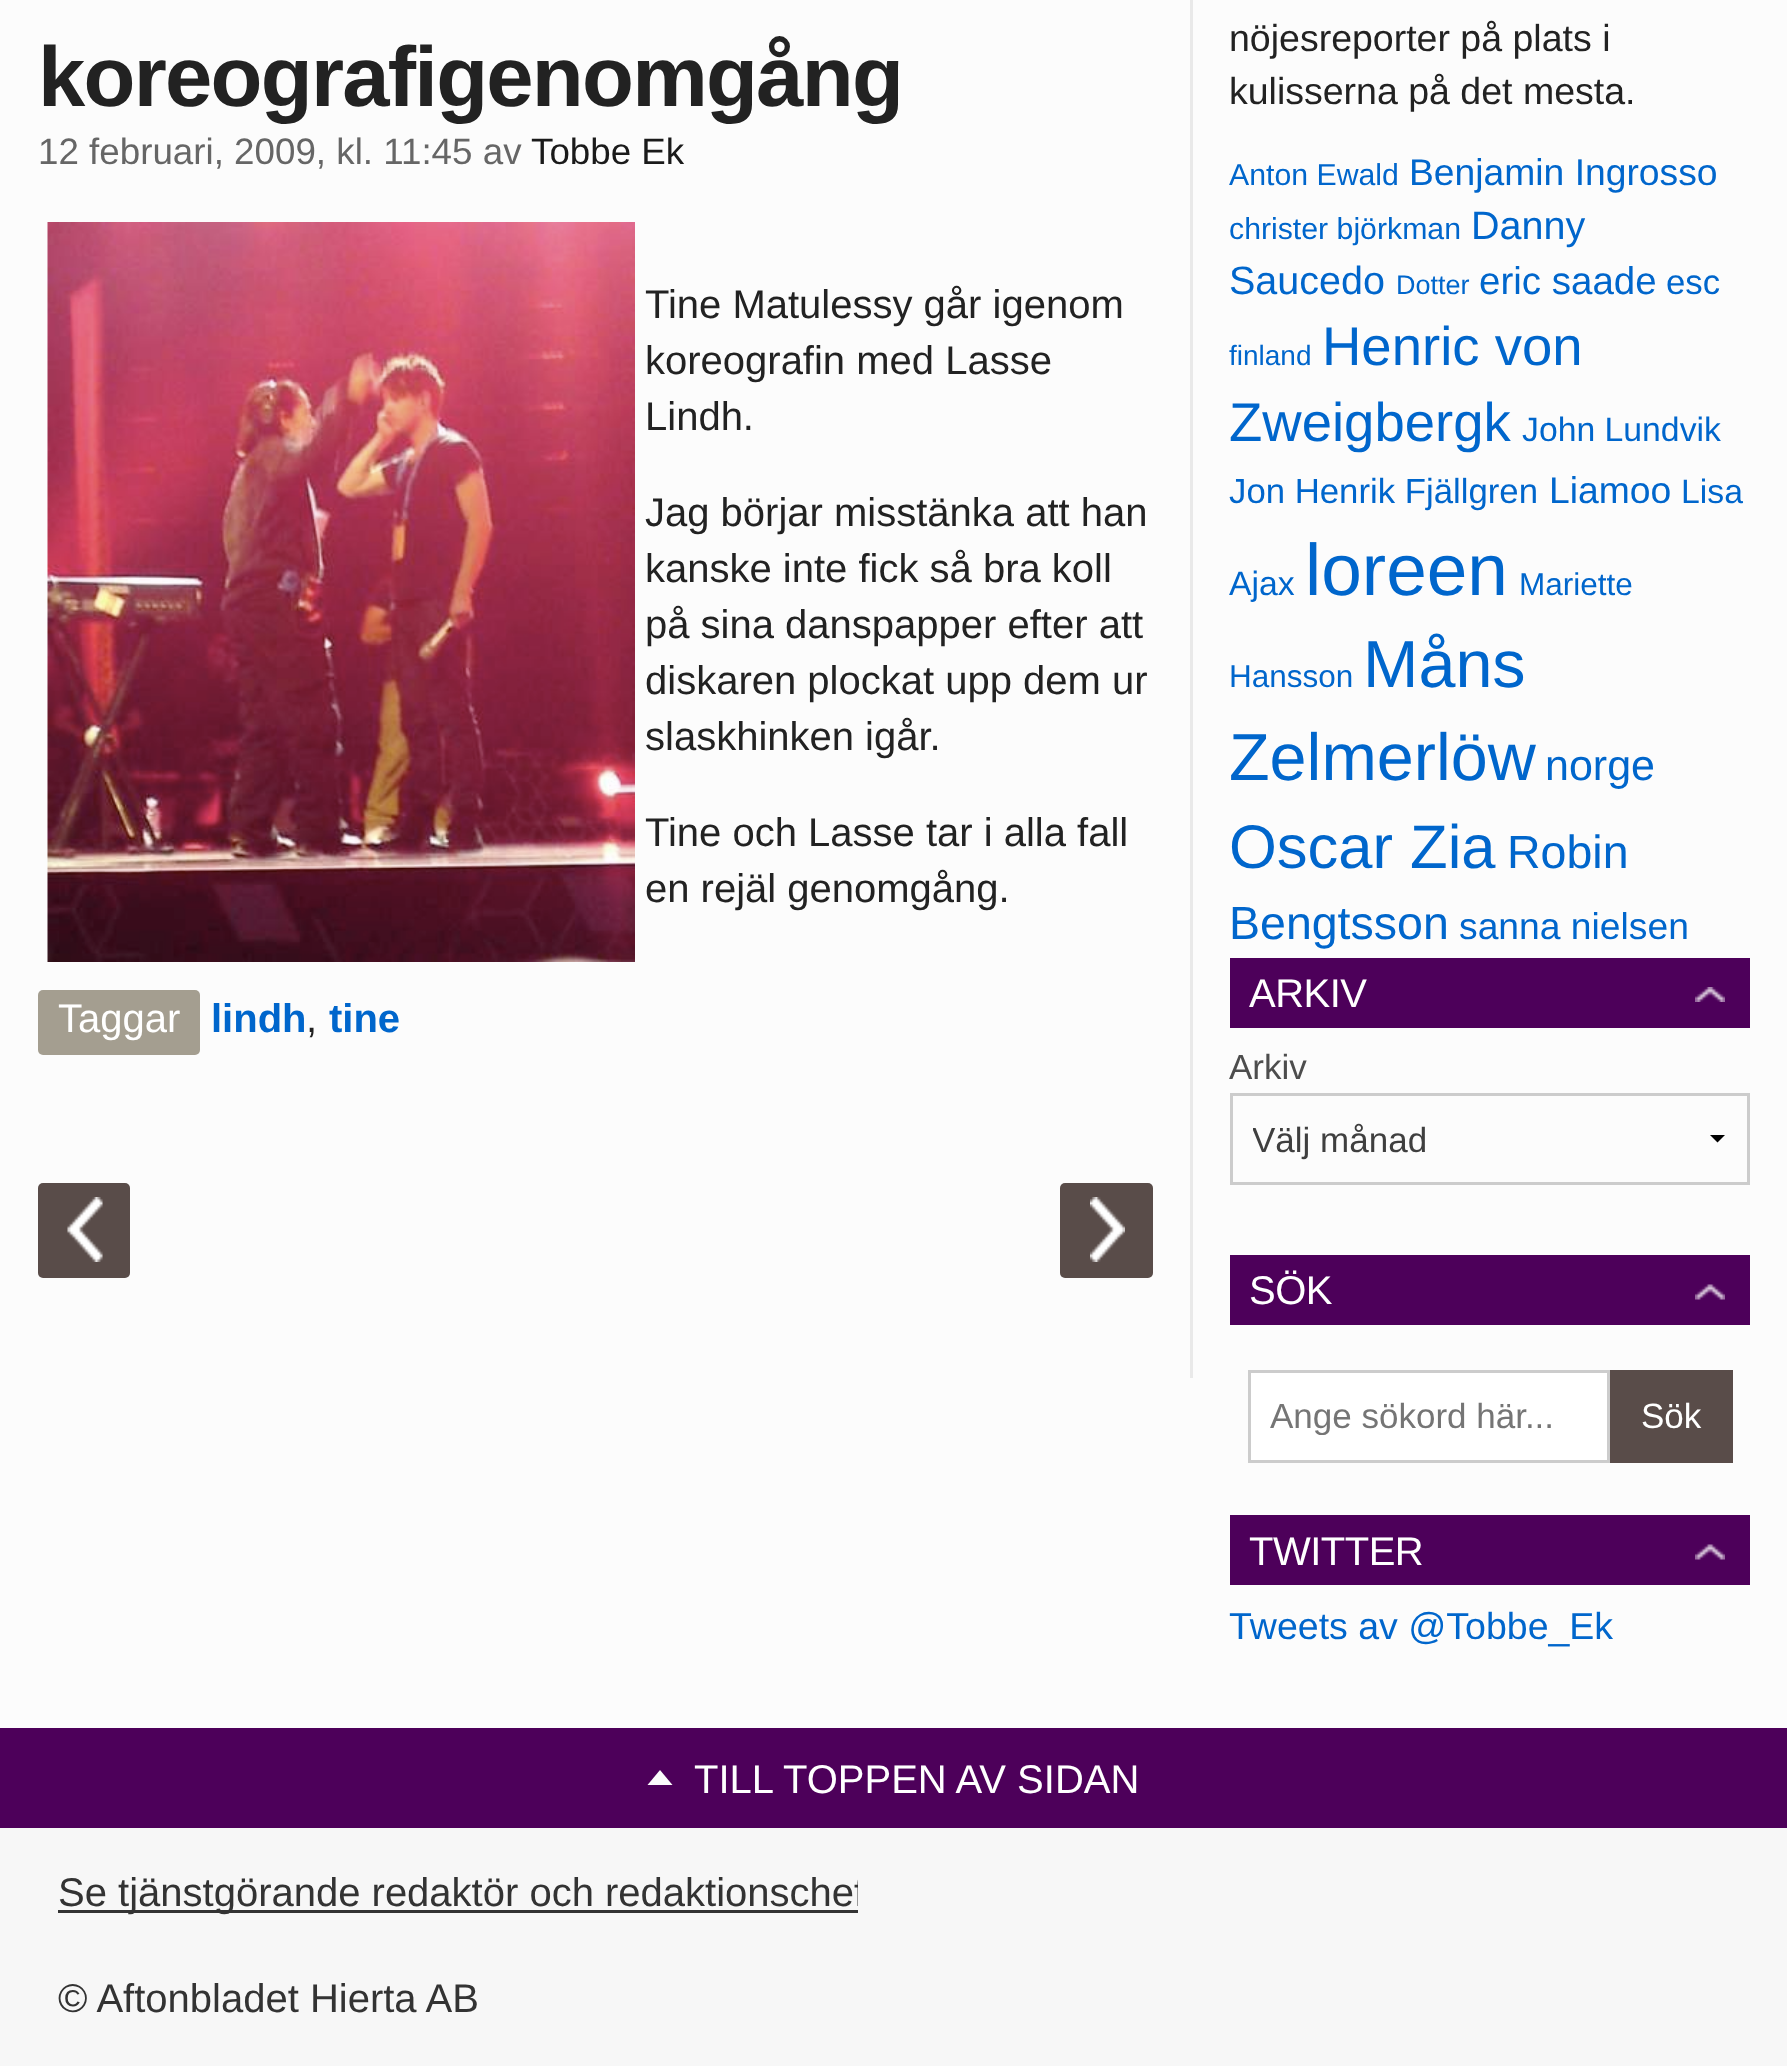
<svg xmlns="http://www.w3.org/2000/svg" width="1787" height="2066">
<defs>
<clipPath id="clip1"><rect x="1253" y="1120" width="475" height="40"/></clipPath>
<clipPath id="clip2"><rect x="1270" y="1395" width="308" height="40"/></clipPath>
<clipPath id="clip3"><rect x="58" y="1868" width="800" height="55"/></clipPath>
</defs>
<rect width="100%" height="100%" fill="#fcfcfc"/>
<rect x="1190" width="3" height="1378" fill="#e9e9e9"/>
<text x="38" y="106" style="font-family:Liberation Sans;font-size:85px;font-weight:bold;letter-spacing:-1.75px;fill:#222">koreografigenomgång</text>
<text x="38" y="164" style="font-family:Liberation Sans;font-size:36.75px;fill:#666">12 februari, 2009, kl. 11:45 av</text>
<text x="531" y="164" style="font-family:Liberation Sans;font-size:36.75px;fill:#1a1a1a">Tobbe Ek</text>
<image x="47" y="222" width="588" height="740" href="media/1.png"/>
<text x="645" y="318" style="font-family:Liberation Sans;font-size:40px;fill:#222">Tine Matulessy går igenom</text>
<text x="645" y="374" style="font-family:Liberation Sans;font-size:40px;fill:#222">koreografin med Lasse</text>
<text x="645" y="430" style="font-family:Liberation Sans;font-size:40px;fill:#222">Lindh.</text>
<text x="645" y="526" style="font-family:Liberation Sans;font-size:40px;fill:#222">Jag börjar misstänka att han</text>
<text x="645" y="582" style="font-family:Liberation Sans;font-size:40px;fill:#222">kanske inte fick så bra koll</text>
<text x="645" y="638" style="font-family:Liberation Sans;font-size:40px;fill:#222">på sina danspapper efter att</text>
<text x="645" y="694" style="font-family:Liberation Sans;font-size:40px;fill:#222">diskaren plockat upp dem ur</text>
<text x="645" y="750" style="font-family:Liberation Sans;font-size:40px;fill:#222">slaskhinken igår.</text>
<text x="645" y="846" style="font-family:Liberation Sans;font-size:40px;fill:#222">Tine och Lasse tar i alla fall</text>
<text x="645" y="902" style="font-family:Liberation Sans;font-size:40px;fill:#222">en rejäl genomgång.</text>
<rect x="38" y="990" width="162" height="65" rx="5" fill="#a49e90"/>
<text x="58" y="1032" style="font-family:Liberation Sans;font-size:40px;fill:#fff">Taggar</text>
<text x="211" y="1032" style="font-family:Liberation Sans;font-size:40px;font-weight:bold;fill:#06c">lindh</text>
<text x="306" y="1032" style="font-family:Liberation Sans;font-size:40px;fill:#222">,</text>
<text x="329" y="1032" style="font-family:Liberation Sans;font-size:40px;font-weight:bold;fill:#06c">tine</text>
<rect x="38" y="1183" width="92" height="95" rx="5" fill="#594c49"/>
<image x="67" y="1197" width="36" height="65" href="media/2.png"/>
<rect x="1060" y="1183" width="93" height="95" rx="5" fill="#594c49"/>
<image x="1090" y="1197" width="35" height="65" href="media/3.png"/>
<text x="1229" y="51" style="font-family:Liberation Sans;font-size:37.5px;fill:#222">nöjesreporter på plats i</text>
<text x="1229" y="104" style="font-family:Liberation Sans;font-size:37.5px;fill:#222">kulisserna på det mesta.</text>
<text x="1229" y="185" style="font-family:Liberation Sans;font-size:30.25px;fill:#06c">Anton Ewald</text>
<text x="1409" y="185" style="font-family:Liberation Sans;font-size:37.25px;fill:#06c">Benjamin Ingrosso</text>
<text x="1229" y="239" style="font-family:Liberation Sans;font-size:30.25px;fill:#06c">christer björkman</text>
<text x="1471" y="239" style="font-family:Liberation Sans;font-size:39.5px;fill:#06c">Danny</text>
<text x="1229" y="294" style="font-family:Liberation Sans;font-size:39.5px;fill:#06c">Saucedo</text>
<text x="1396" y="294" style="font-family:Liberation Sans;font-size:27px;fill:#06c">Dotter</text>
<text x="1479" y="294" style="font-family:Liberation Sans;font-size:38.5px;fill:#06c">eric saade</text>
<text x="1666" y="294" style="font-family:Liberation Sans;font-size:34.75px;fill:#06c">esc</text>
<text x="1229" y="365" style="font-family:Liberation Sans;font-size:28px;fill:#06c">finland</text>
<text x="1322" y="365" style="font-family:Liberation Sans;font-size:54.5px;fill:#06c">Henric von</text>
<text x="1229" y="441" style="font-family:Liberation Sans;font-size:54.5px;fill:#06c">Zweigbergk</text>
<text x="1522" y="441" style="font-family:Liberation Sans;font-size:33.75px;fill:#06c">John Lundvik</text>
<text x="1229" y="503" style="font-family:Liberation Sans;font-size:34.75px;fill:#06c">Jon Henrik Fjällgren</text>
<text x="1549" y="503" style="font-family:Liberation Sans;font-size:37.25px;fill:#06c">Liamoo</text>
<text x="1681" y="503" style="font-family:Liberation Sans;font-size:33.75px;fill:#06c">Lisa</text>
<text x="1229" y="595" style="font-family:Liberation Sans;font-size:33.75px;fill:#06c">Ajax</text>
<text x="1305" y="595" style="font-family:Liberation Sans;font-size:73px;fill:#06c">loreen</text>
<text x="1519" y="595" style="font-family:Liberation Sans;font-size:31.5px;fill:#06c">Mariette</text>
<text x="1229" y="687" style="font-family:Liberation Sans;font-size:31.5px;fill:#06c">Hansson</text>
<text x="1363" y="687" style="font-family:Liberation Sans;font-size:66.5px;fill:#06c">Måns</text>
<text x="1229" y="780" style="font-family:Liberation Sans;font-size:66.5px;fill:#06c">Zelmerlöw</text>
<text x="1545" y="780" style="font-family:Liberation Sans;font-size:43px;fill:#06c">norge</text>
<text x="1229" y="868" style="font-family:Liberation Sans;font-size:61.5px;fill:#06c">Oscar Zia</text>
<text x="1507" y="868" style="font-family:Liberation Sans;font-size:46.5px;fill:#06c">Robin</text>
<text x="1229" y="939" style="font-family:Liberation Sans;font-size:46.5px;fill:#06c">Bengtsson</text>
<text x="1459" y="939" style="font-family:Liberation Sans;font-size:37.25px;fill:#06c">sanna nielsen</text>
<rect x="1230" y="958" width="520" height="70" fill="#4d005a"/>
<text x="1249" y="1007" style="font-family:Liberation Sans;font-size:40px;letter-spacing:-0.5px;fill:#fff">ARKIV</text>
<image x="1695" y="987" width="30" height="15" href="media/4.png"/>
<text x="1229" y="1079" style="font-family:Liberation Sans;font-size:35px;fill:#4d4d4d">Arkiv</text>
<path d="M1725 1135l-7.5 7.5l-7.5-7.5z" fill="#000"/>
<rect x="1231.5" y="1094.5" width="517" height="89" fill="none" stroke="#ccc" stroke-width="3"/>
<g clip-path="url(#clip1)">
<text x="1252" y="1152" style="font-family:Liberation Sans;font-size:35px;fill:#3f3f3f">Välj månad</text>
</g>
<rect x="1230" y="1255" width="520" height="70" fill="#4d005a"/>
<text x="1249" y="1304" style="font-family:Liberation Sans;font-size:40px;letter-spacing:-0.5px;fill:#fff">SÖK</text>
<image x="1695" y="1284" width="30" height="16" href="media/5.png"/>
<rect x="1249.5" y="1371.5" width="359" height="90" fill="#fff" stroke="#ccc" stroke-width="3"/>
<g clip-path="url(#clip2)">
<text x="1270" y="1428" style="font-family:Liberation Sans;font-size:35px;fill:#757575">Ange sökord här...</text>
</g>
<rect x="1610" y="1370" width="123" height="93" fill="#594c49"/>
<text x="1641" y="1428" style="font-family:Liberation Sans;font-size:35px;fill:#fff">Sök</text>
<rect x="1230" y="1515" width="520" height="70" fill="#4d005a"/>
<text x="1249" y="1565" style="font-family:Liberation Sans;font-size:40px;letter-spacing:-0.5px;fill:#fff">TWITTER</text>
<image x="1695" y="1544" width="30" height="16" href="media/5.png"/>
<text x="1229" y="1639" style="font-family:Liberation Sans;font-size:37.5px;fill:#06c">Tweets av @Tobbe_Ek</text>
<rect y="1728" width="1787" height="100" fill="#4d005a"/>
<path d="M672.5 1785h-25l12.5-15z" fill="#fcfcfc"/>
<text x="694" y="1793" style="font-family:Liberation Sans;font-size:40px;fill:#fff">TILL TOPPEN AV SIDAN</text>
<rect y="1828" width="1787" height="238" fill="#f7f7f7"/>
<rect x="58" y="1910" width="800" height="3" fill="#333"/>
<g clip-path="url(#clip3)">
<text x="58" y="1906" style="font-family:Liberation Sans;font-size:40px;fill:#333">Se tjänstgörande redaktör och redaktionschef</text>
</g>
<text x="58" y="2012" style="font-family:Liberation Sans;font-size:40px;fill:#333">© Aftonbladet Hierta AB</text>
</svg>
